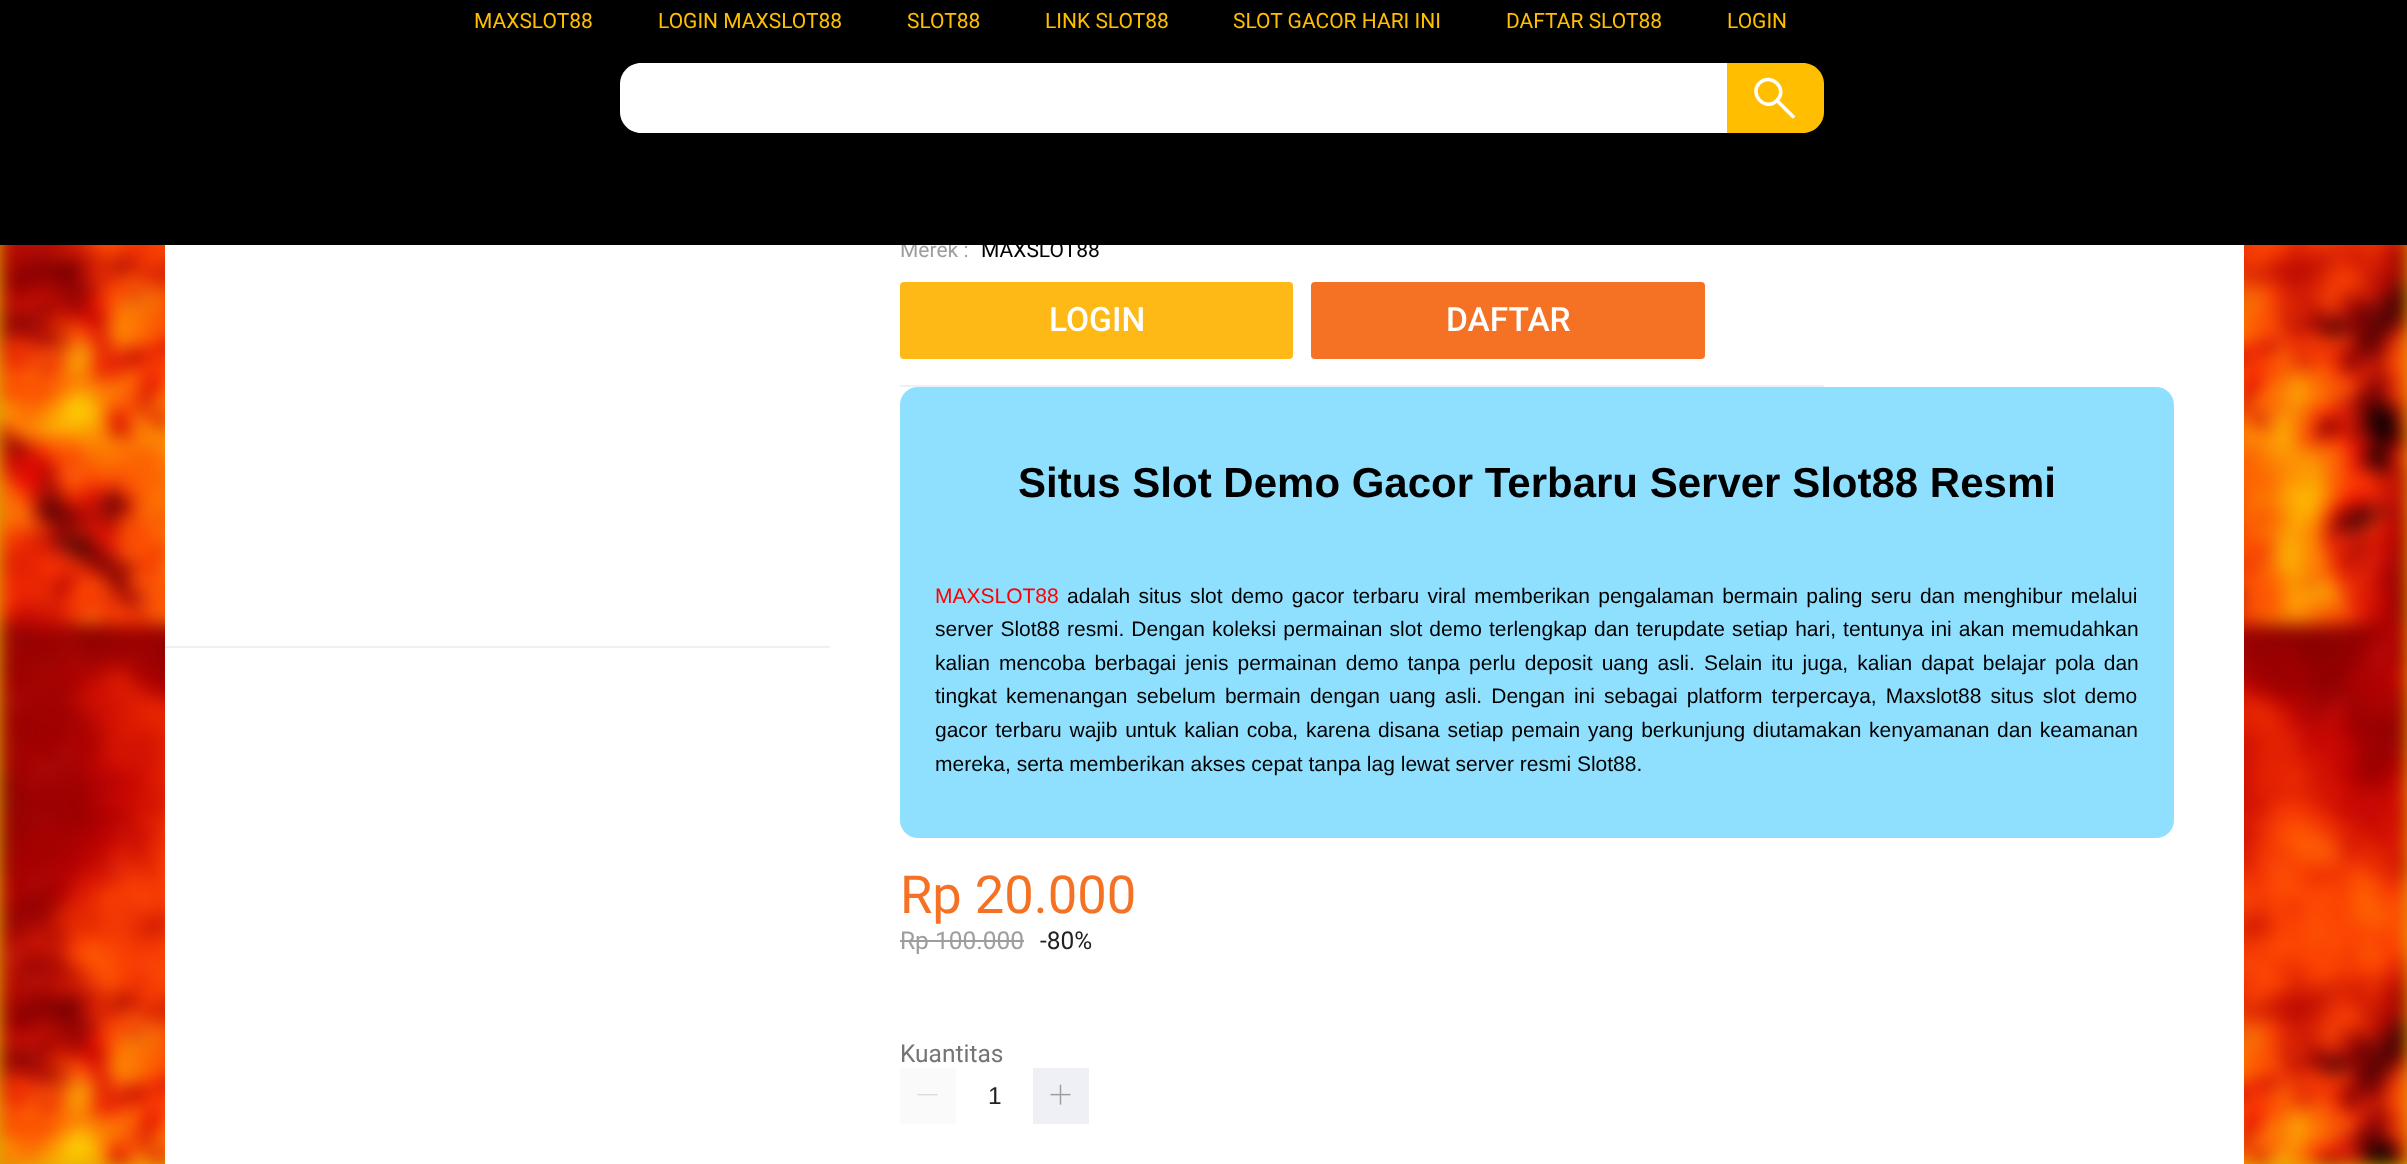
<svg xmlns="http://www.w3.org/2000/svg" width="2407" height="1164">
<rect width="100%" height="100%" fill="#ddae05"/>
<image x="0" y="245" width="2407" height="919" href="media/3.png"/>
<rect x="165" y="245" width="2079" height="919" fill="#fff"/>
<text x="900" y="257" style="font-family:Roboto;font-size:21px;fill:#9e9e9e">Merek :</text>
<rect width="2407" height="245" fill="#000"/>
<text x="474" y="28" style="font-family:'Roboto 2';font-size:21px;fill:#ffbf00">MAXSLOT88</text>
<text x="658" y="28" style="font-family:'Roboto 2';font-size:21px;fill:#ffbf00">LOGIN MAXSLOT88</text>
<text x="907" y="28" style="font-family:'Roboto 2';font-size:21px;fill:#ffbf00">SLOT88</text>
<text x="1045" y="28" style="font-family:'Roboto 2';font-size:21px;fill:#ffbf00">LINK SLOT88</text>
<text x="1233" y="28" style="font-family:'Roboto 2';font-size:21px;fill:#ffbf00">SLOT GACOR HARI INI</text>
<text x="1506" y="28" style="font-family:'Roboto 2';font-size:21px;fill:#ffbf00">DAFTAR SLOT88</text>
<text x="1727" y="28" style="font-family:'Roboto 2';font-size:21px;fill:#ffbf00">LOGIN</text>
<path d="M641 63h1086v70h-1086c-11.5 0-21-9.5-21-21v-28c0-11.5 9.5-21 21-21z" fill="#fff"/>
<path d="M1727 63h76c11.5 0 21 9.5 21 21v28c0 11.5-9.5 21-21 21h-76z" fill="#ffbf00"/>
<path d="M1777 100.5c11.5-11.5-6-28.5-17.5-17.5c-11 11.5 6 29 17.5 17.5zm.5 .5l15.5 15.5" fill="none" stroke="#fff" stroke-width="3.5" stroke-linecap="round" stroke-linejoin="round"/>
<rect x="165" y="646" width="665" height="2" fill="#eff0f5"/>
<rect x="900" y="385" width="924" height="2" fill="#eff0f5"/>
<text x="981" y="257" style="font-family:Roboto;font-size:21px;fill:#000">MAXSLOT88</text>
<rect x="900" y="282" width="393" height="77" rx="4" fill="#ffb916"/>
<text x="1049" y="331" style="font-family:Roboto;font-size:33.5px;font-weight:500;fill:#fff">LOGIN</text>
<rect x="1311" y="282" width="394" height="77" rx="4" fill="#f57224"/>
<text x="1446" y="331" style="font-family:Roboto;font-size:33.5px;font-weight:500;fill:#fff">DAFTAR</text>
<rect x="900" y="387" width="1274" height="451" rx="18" fill="#8fe0ff"/>
<text x="1018" y="497" style="font-family:Liberation Sans;font-size:42px;font-weight:bold;fill:#000">Situs Slot Demo Gacor Terbaru Server Slot88 Resmi</text>
<text x="935" y="603" style="font-family:Liberation Sans;font-size:21px;fill:#f00">MAXSLOT88</text>
<text x="1067" y="603" word-spacing="2.5" style="font-family:Liberation Sans;font-size:21px;fill:#000">adalah situs slot demo gacor terbaru viral memberikan pengalaman bermain paling seru dan menghibur melalui</text>
<text x="935" y="636" word-spacing="1.25" style="font-family:Liberation Sans;font-size:21px;fill:#000">server Slot88 resmi. Dengan koleksi permainan slot demo terlengkap dan terupdate setiap hari, tentunya ini akan memudahkan</text>
<text x="935" y="670" word-spacing="3.25" style="font-family:Liberation Sans;font-size:21px;fill:#000">kalian mencoba berbagai jenis permainan demo tanpa perlu deposit uang asli. Selain itu juga, kalian dapat belajar pola dan</text>
<text x="935" y="703" word-spacing="3.25" style="font-family:Liberation Sans;font-size:21px;fill:#000">tingkat kemenangan sebelum bermain dengan uang asli. Dengan ini sebagai platform terpercaya, Maxslot88 situs slot demo</text>
<text x="935" y="737" word-spacing="1.9" style="font-family:Liberation Sans;font-size:21px;fill:#000">gacor terbaru wajib untuk kalian coba, karena disana setiap pemain yang berkunjung diutamakan kenyamanan dan keamanan</text>
<text x="935" y="771" style="font-family:Liberation Sans;font-size:21px;fill:#000">mereka, serta memberikan akses cepat tanpa lag lewat server resmi Slot88.</text>
<text x="900" y="913" style="font-family:Roboto;font-size:52.5px;fill:#f57224">Rp 20.000</text>
<text x="900" y="949" style="font-family:Roboto;font-size:24.5px;fill:#9e9e9e">Rp 100.000</text>
<rect x="900" y="940" width="124" height="2" fill="#9e9e9e"/>
<text x="1040" y="949" style="font-family:Roboto;font-size:24.5px;fill:#212121">-80%</text>
<text x="900" y="1062" style="font-family:Roboto;font-size:24.5px;fill:#757575">Kuantitas</text>
<rect x="900" y="1068" width="56" height="56" fill="#fafafa"/>
<image x="917" y="1094" width="21" height="2" href="media/1.png"/>
<rect x="1033" y="1068" width="56" height="56" fill="#eff0f5"/>
<image x="1050" y="1084" width="21" height="21" href="media/2.png"/>
<text x="988" y="1104" style="font-family:Liberation Sans;font-size:24.5px;fill:#212121">1</text>
</svg>
